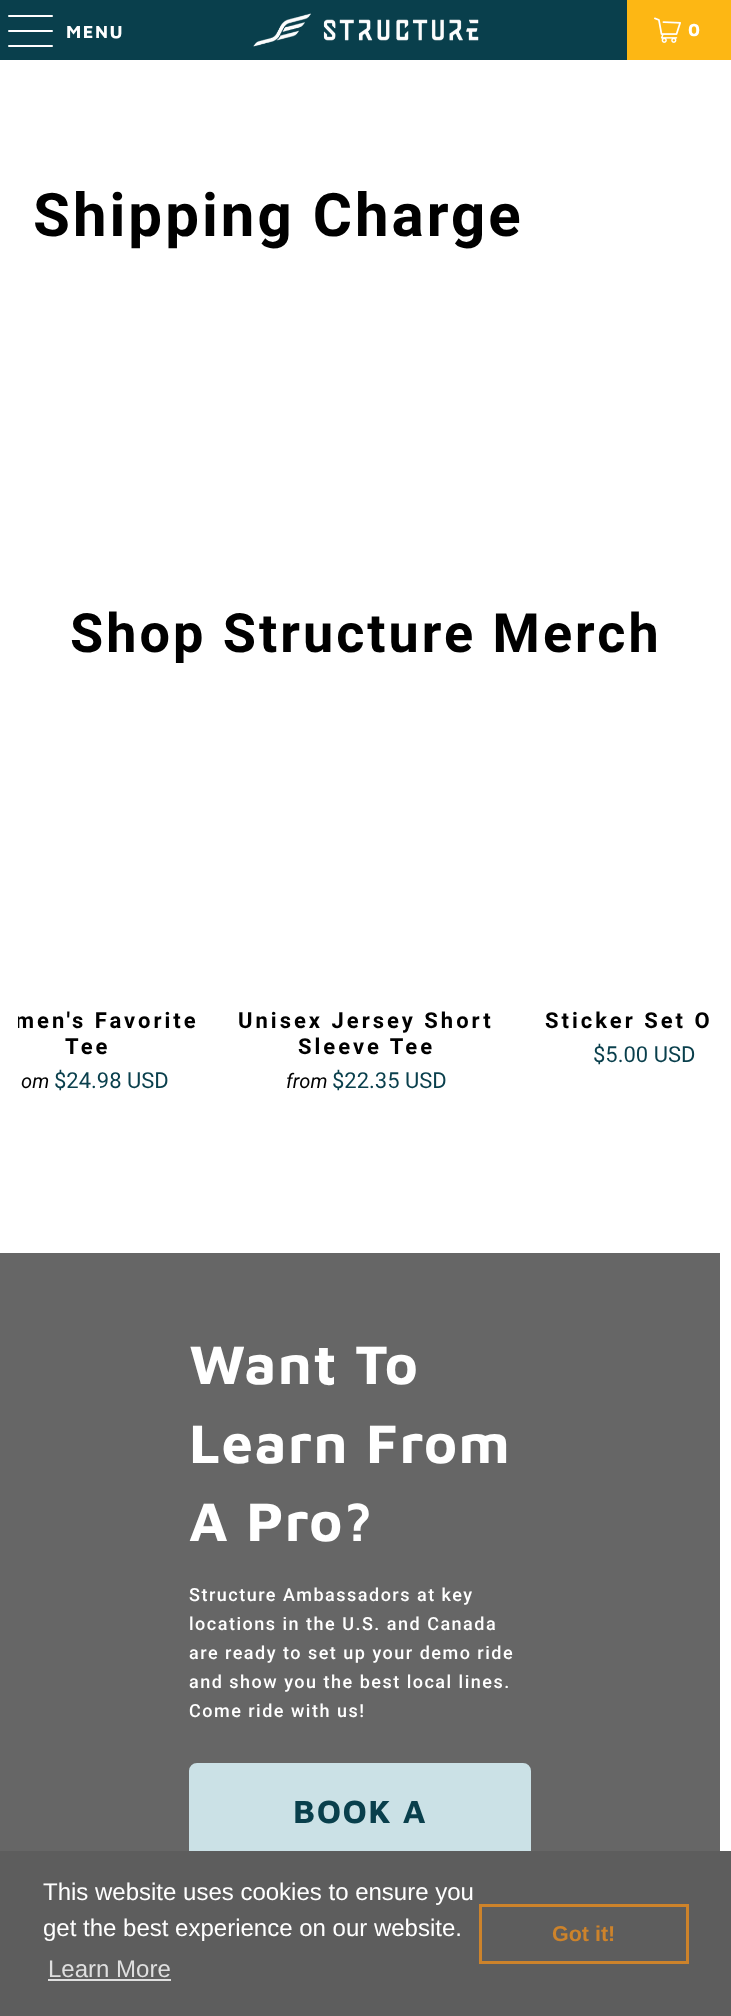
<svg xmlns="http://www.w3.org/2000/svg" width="731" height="2016">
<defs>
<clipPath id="clip1"><rect x="18" y="716" width="696" height="379"/></clipPath>
</defs>
<rect width="100%" height="100%" fill="#fff"/>
<rect width="627" height="60" fill="#093f4c"/>
<rect x="8" y="15" width="45" height="2" rx="1" fill="#fff"/>
<rect x="8" y="30" width="45" height="2" rx="1" fill="#fff"/>
<rect x="8" y="45" width="45" height="2" rx="1" fill="#fff"/>
<text x="66" y="38" style="font-family:Maven Pro;font-size:18px;font-weight:bold;letter-spacing:1.5px;fill:#fff">MENU</text>
<image x="253" y="13" width="226" height="34" href="media/1.png"/>
<rect x="627" width="104" height="60" fill="#fdb714"/>
<image x="654" y="17" width="27" height="26" href="media/2.png"/>
<text x="688" y="36" style="font-family:Maven Pro;font-size:18px;font-weight:bold;letter-spacing:1.5px;fill:#fff">0</text>
<text x="33" y="236" style="font-family:Roboto;font-size:60px;font-weight:bold;letter-spacing:3px;fill:#000">Shipping Charge</text>
<text x="70" y="652" style="font-family:Roboto;font-size:54px;font-weight:bold;letter-spacing:3px;fill:#000">Shop Structure Merch</text>
<g clip-path="url(#clip1)">
<text x="15" y="1028" style="font-family:Roboto;font-size:22px;font-weight:bold;letter-spacing:3px;fill:#000">men's Favorite</text>
</g>
<text x="65" y="1054" style="font-family:Roboto;font-size:22px;font-weight:bold;letter-spacing:3px;fill:#000">Tee</text>
<text x="21" y="1088" style="font-family:Roboto;font-size:20px;font-style:italic;fill:#000">om</text>
<text x="54" y="1088" style="font-family:Roboto;font-size:22px;fill:#093f4c">$24.98 USD</text>
<text x="238" y="1028" style="font-family:Roboto;font-size:22px;font-weight:bold;letter-spacing:3px;fill:#000">Unisex Jersey Short</text>
<text x="298" y="1054" style="font-family:Roboto;font-size:22px;font-weight:bold;letter-spacing:3px;fill:#000">Sleeve Tee</text>
<text x="286" y="1088" style="font-family:Roboto;font-size:20px;font-style:italic;fill:#000">from</text>
<text x="332" y="1088" style="font-family:Roboto;font-size:22px;fill:#093f4c">$22.35 USD</text>
<text x="545" y="1028" style="font-family:Roboto;font-size:22px;font-weight:bold;letter-spacing:3px;fill:#000">Sticker Set O</text>
<text x="593" y="1062" style="font-family:Roboto;font-size:22px;fill:#093f4c">$5.00 USD</text>
<rect y="1253" width="720" height="598" fill="#666"/>
<text x="189" y="1384" style="font-family:Maven Pro;font-size:56px;font-weight:bold;letter-spacing:1.5px;fill:#fff">Want To</text>
<text x="189" y="1463" style="font-family:Maven Pro;font-size:56px;font-weight:bold;letter-spacing:1.5px;fill:#fff">Learn From</text>
<text x="189" y="1541" style="font-family:Maven Pro;font-size:56px;font-weight:bold;letter-spacing:1.5px;fill:#fff">A Pro?</text>
<text x="189" y="1601" style="font-family:Roboto;font-size:18px;font-weight:500;letter-spacing:1.5px;fill:#fff">Structure Ambassadors at key</text>
<text x="189" y="1630" style="font-family:Roboto;font-size:18px;font-weight:500;letter-spacing:1.5px;fill:#fff">locations in the U.S. and Canada</text>
<text x="189" y="1659" style="font-family:Roboto;font-size:18px;font-weight:500;letter-spacing:1.5px;fill:#fff">are ready to set up your demo ride</text>
<text x="189" y="1688" style="font-family:Roboto;font-size:18px;font-weight:500;letter-spacing:1.5px;fill:#fff">and show you the best local lines.</text>
<text x="189" y="1717" style="font-family:Roboto;font-size:18px;font-weight:500;letter-spacing:1.5px;fill:#fff">Come ride with us!</text>
<rect x="190" y="1764" width="340" height="134" rx="7" fill="#cbe1e6" stroke="#cbe1e6" stroke-width="2"/>
<text x="293" y="1823" style="font-family:Maven Pro;font-size:33px;font-weight:bold;letter-spacing:1.5px;fill:#093f4c">BOOK A</text>
<rect y="1851" width="731" height="165" fill="#5d5d5d"/>
<text x="43" y="1900" style="font-family:Liberation Sans;font-size:24px;fill:#fff">This website uses cookies to ensure you</text>
<text x="43" y="1936" style="font-family:Liberation Sans;font-size:24px;fill:#fff">get the best experience on our website.</text>
<text x="48" y="1977" style="font-family:Liberation Sans;font-size:24px;fill:#dfdfdf">Learn More</text>
<rect x="48" y="1979" width="123" height="2" fill="#dfdfdf"/>
<rect x="480.5" y="1905.5" width="207" height="57" fill="none" stroke="#cd832b" stroke-width="3"/>
<text x="552" y="1941" style="font-family:Liberation Sans;font-size:21.5px;font-weight:bold;fill:#cd832b">Got it!</text>
</svg>
